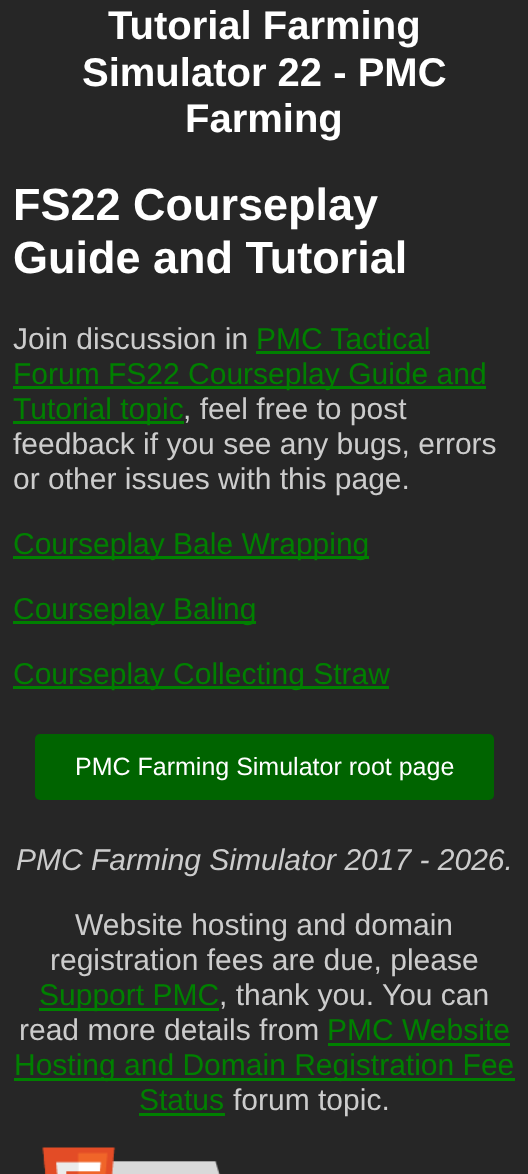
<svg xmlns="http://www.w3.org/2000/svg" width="528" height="1174">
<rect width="100%" height="100%" fill="#262626"/>
<text x="108" y="39" style="font-family:Liberation Sans;font-size:40px;font-weight:bold;fill:#fff">Tutorial Farming</text>
<text x="82" y="86" style="font-family:Liberation Sans;font-size:40px;font-weight:bold;fill:#fff">Simulator 22 - PMC</text>
<text x="185" y="132" style="font-family:Liberation Sans;font-size:40px;font-weight:bold;fill:#fff">Farming</text>
<text x="13" y="220" style="font-family:Liberation Sans;font-size:45px;font-weight:bold;fill:#fff">FS22 Courseplay</text>
<text x="13" y="273" style="font-family:Liberation Sans;font-size:45px;font-weight:bold;fill:#fff">Guide and Tutorial</text>
<text x="13" y="349" style="font-family:Liberation Sans;font-size:30px;fill:#ccc">Join discussion in</text>
<text x="256" y="349" style="font-family:Liberation Sans;font-size:30px;fill:#008000">PMC Tactical</text>
<rect x="256" y="351" width="174" height="3" fill="#008000"/>
<rect x="13" y="386" width="473" height="3" fill="#008000"/>
<text x="13" y="384" style="font-family:Liberation Sans;font-size:30px;fill:#008000">Forum FS22 Courseplay Guide and</text>
<rect x="13" y="421" width="171" height="3" fill="#008000"/>
<text x="13" y="419" style="font-family:Liberation Sans;font-size:30px;fill:#008000">Tutorial topic</text>
<text x="183" y="419" style="font-family:Liberation Sans;font-size:30px;fill:#ccc">, feel free to post</text>
<text x="13" y="454" style="font-family:Liberation Sans;font-size:30px;fill:#ccc">feedback if you see any bugs, errors</text>
<text x="13" y="489" style="font-family:Liberation Sans;font-size:30px;fill:#ccc">or other issues with this page.</text>
<rect x="13" y="556" width="356" height="3" fill="#008000"/>
<text x="13" y="554" style="font-family:Liberation Sans;font-size:30px;fill:#008000">Courseplay Bale Wrapping</text>
<rect x="13" y="621" width="243" height="3" fill="#008000"/>
<text x="13" y="619" style="font-family:Liberation Sans;font-size:30px;fill:#008000">Courseplay Baling</text>
<rect x="13" y="686" width="376" height="3" fill="#008000"/>
<text x="13" y="684" style="font-family:Liberation Sans;font-size:30px;fill:#008000">Courseplay Collecting Straw</text>
<rect x="35" y="734" width="459" height="66" rx="5" fill="#006400"/>
<text x="75" y="775" style="font-family:Liberation Sans;font-size:25px;fill:#fff">PMC Farming Simulator root page</text>
<text x="16" y="870" style="font-family:Liberation Sans;font-size:30px;font-style:italic;fill:#ccc">PMC Farming Simulator 2017 - 2026.</text>
<text x="75" y="935" style="font-family:Liberation Sans;font-size:30px;fill:#ccc">Website hosting and domain</text>
<text x="50" y="970" style="font-family:Liberation Sans;font-size:30px;fill:#ccc">registration fees are due, please</text>
<rect x="39" y="1008" width="180" height="3" fill="#008000"/>
<text x="39" y="1005" style="font-family:Liberation Sans;font-size:30px;fill:#008000">Support PMC</text>
<text x="219" y="1005" style="font-family:Liberation Sans;font-size:30px;fill:#ccc">, thank you. You can</text>
<text x="19" y="1040" style="font-family:Liberation Sans;font-size:30px;fill:#ccc">read more details from</text>
<text x="327" y="1040" style="font-family:Liberation Sans;font-size:30px;fill:#008000">PMC Website</text>
<rect x="328" y="1043" width="182" height="3" fill="#008000"/>
<rect x="14" y="1078" width="501" height="3" fill="#008000"/>
<text x="14" y="1075" style="font-family:Liberation Sans;font-size:30px;fill:#008000">Hosting and Domain Registration Fee</text>
<text x="139" y="1110" style="font-family:Liberation Sans;font-size:30px;fill:#008000">Status</text>
<rect x="139" y="1113" width="86" height="3" fill="#008000"/>
<text x="233" y="1110" style="font-family:Liberation Sans;font-size:30px;fill:#ccc">forum topic.</text>
<image x="42" y="1147" width="179" height="27" href="media/1.png"/>
</svg>
